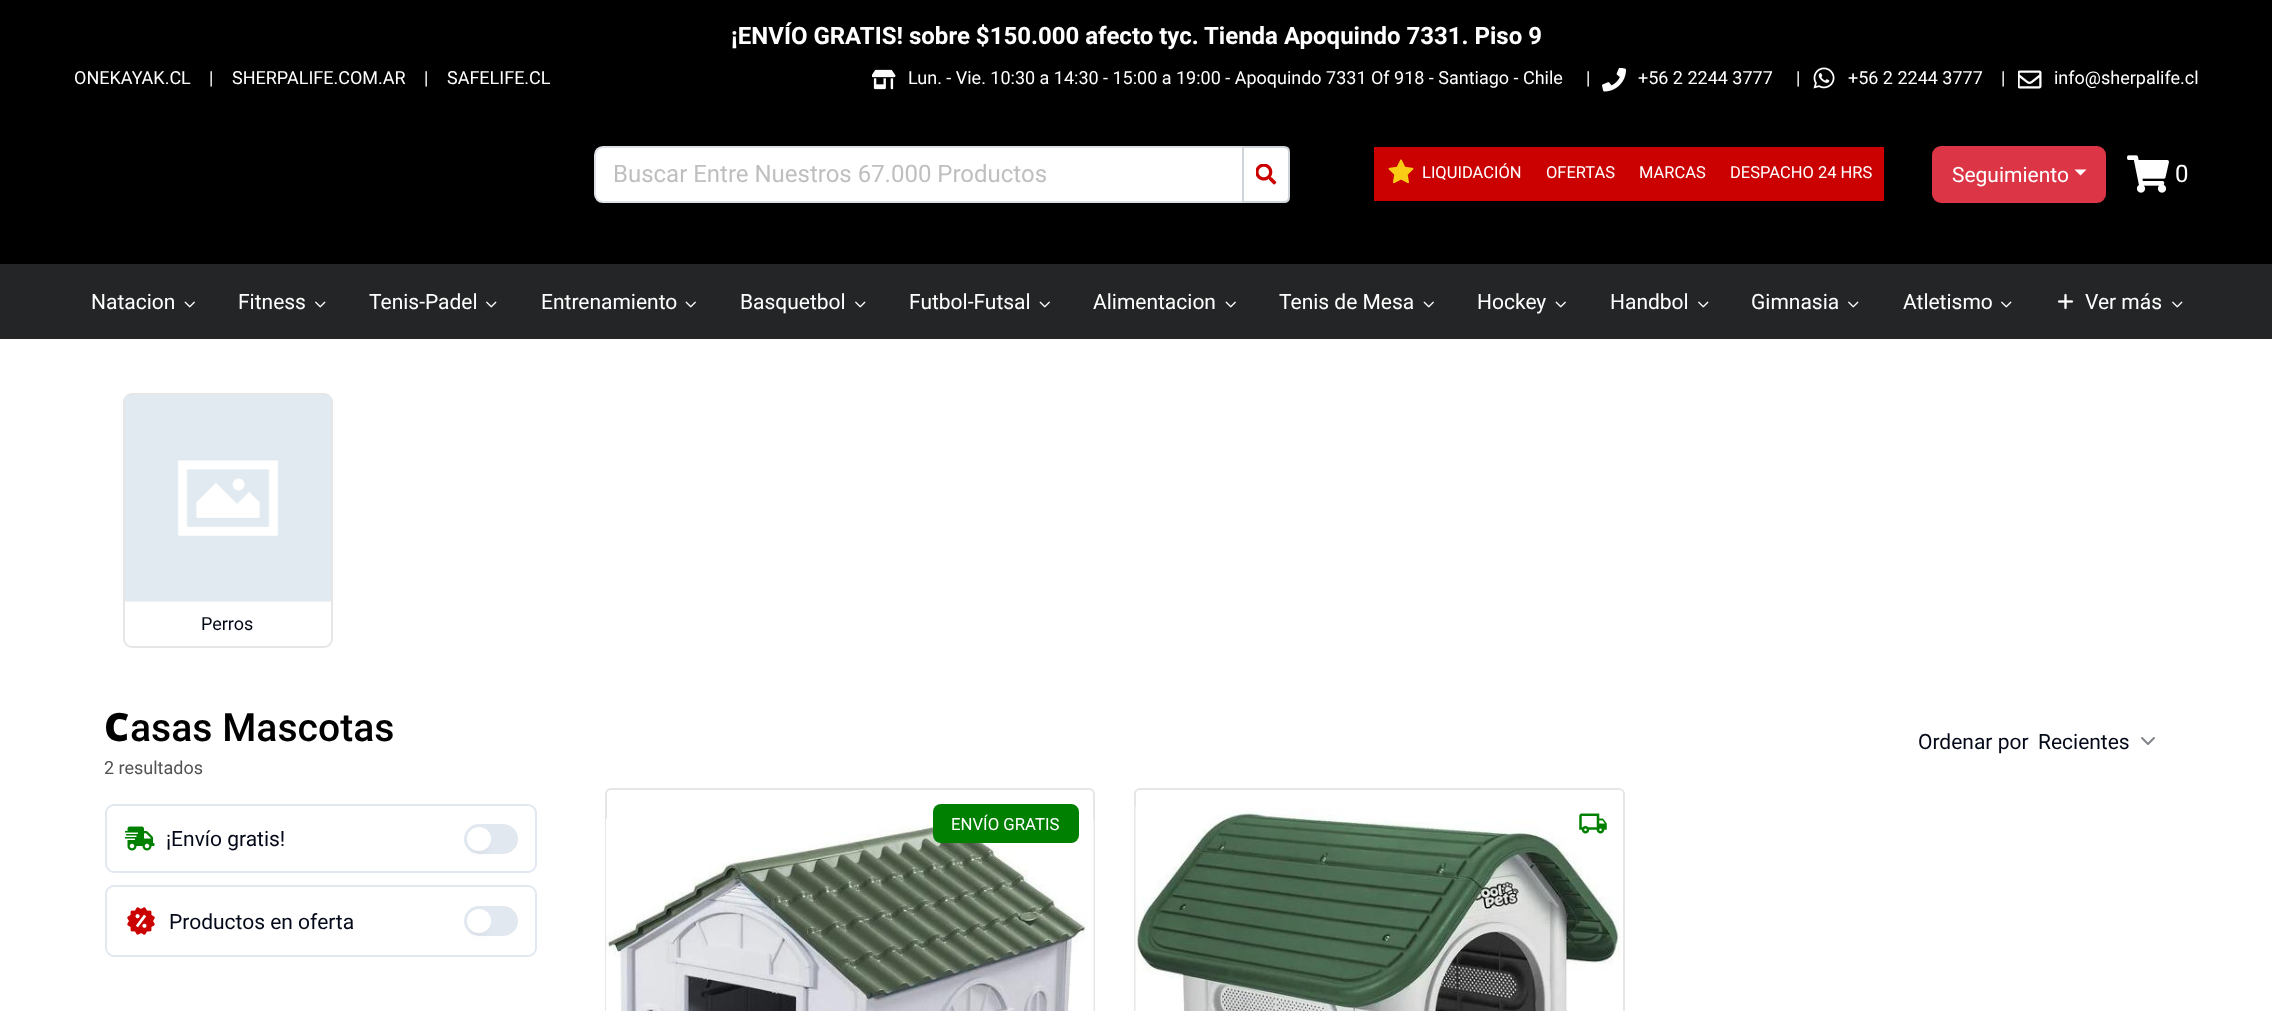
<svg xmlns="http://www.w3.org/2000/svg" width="2272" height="1011">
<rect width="100%" height="100%" fill="#fff"/>
<rect width="2272" height="264" fill="#000"/>
<text x="731" y="44" style="font-family:Roboto;font-size:24px;font-weight:bold;fill:#fff">¡ENVÍO GRATIS! sobre $150.000 afecto tyc. Tienda Apoquindo 7331. Piso 9</text>
<text x="74" y="84" style="font-family:Roboto;font-size:18px;fill:#fff">ONEKAYAK.CL</text>
<text x="209" y="84" style="font-family:Roboto;font-size:18px;fill:#fff">|</text>
<text x="232" y="84" style="font-family:Roboto;font-size:18px;fill:#fff">SHERPALIFE.COM.AR</text>
<text x="424" y="84" style="font-family:Roboto;font-size:18px;fill:#fff">|</text>
<text x="447" y="84" style="font-family:Roboto;font-size:18px;fill:#fff">SAFELIFE.CL</text>
<image x="872" y="69" width="24" height="21" href="media/1.png"/>
<text x="908" y="84" style="font-family:Roboto;font-size:18px;fill:#fff">Lun. - Vie. 10:30 a 14:30 - 15:00 a 19:00 - Apoquindo 7331 Of 918 - Santiago - Chile</text>
<text x="1586" y="84" style="font-family:Roboto;font-size:18px;fill:#fff">|</text>
<image x="1602" y="68" width="24" height="24" href="media/2.png"/>
<text x="1638" y="84" style="font-family:Roboto;font-size:18px;fill:#fff">+56 2 2244 3777</text>
<text x="1796" y="84" style="font-family:Roboto;font-size:18px;fill:#fff">|</text>
<image x="1813" y="67" width="22" height="22" href="media/3.png"/>
<text x="1848" y="84" style="font-family:Roboto;font-size:18px;fill:#fff">+56 2 2244 3777</text>
<text x="2001" y="84" style="font-family:Roboto;font-size:18px;fill:#fff">|</text>
<image x="2018" y="70" width="24" height="19" href="media/4.png"/>
<text x="2054" y="84" style="font-family:Roboto;font-size:18px;fill:#fff">info@sherpalife.cl</text>
<path d="M603 147h640v55h-640c-4.5 0-8-3.5-8-8v-39c0-4.5 3.5-8 8-8z" fill="#fff" stroke="#dee2e6" stroke-width="2"/>
<text x="613" y="182" style="font-family:Roboto;font-size:24px;fill:#bfbfbf">Buscar Entre Nuestros 67.000 Productos</text>
<path d="M1243 147h41c3 0 5 2 5 5v45c0 3-2 5-5 5h-41z" fill="#fff" stroke="#ced4da" stroke-width="2"/>
<image x="1256" y="164" width="21" height="21" href="media/5.png"/>
<rect x="1374" y="147" width="510" height="54" fill="#ca0001"/>
<image x="1388" y="159" width="26" height="25" href="media/6.png"/>
<text x="1422" y="178" style="font-family:Roboto;font-size:16.5px;fill:#fff">LIQUIDACIÓN</text>
<text x="1546" y="178" style="font-family:Roboto;font-size:16.5px;fill:#fff">OFERTAS</text>
<text x="1639" y="178" style="font-family:Roboto;font-size:16.5px;fill:#fff">MARCAS</text>
<text x="1730" y="178" style="font-family:Roboto;font-size:16.5px;fill:#fff">DESPACHO 24 HRS</text>
<rect x="1933" y="147" width="172" height="55" rx="8" fill="#dc3545" stroke="#dc3545" stroke-width="2"/>
<text x="1952" y="182" style="font-family:Roboto;font-size:21px;fill:#fff">Seguimiento</text>
<path d="M2074.5 169.5h12l-6 6z" fill="#fff"/>
<image x="2127" y="155" width="42" height="38" href="media/7.png"/>
<text x="2175" y="182" style="font-family:Roboto;font-size:24px;fill:#fff">0</text>
<rect y="264" width="2272" height="75" fill="#242526"/>
<text x="91" y="309" style="font-family:Roboto;font-size:21px;fill:#fff">Natacion</text>
<image x="184" y="301" width="11" height="7" href="media/8.png"/>
<text x="238" y="309" style="font-family:Roboto;font-size:21px;fill:#fff">Fitness</text>
<image x="315" y="301" width="11" height="7" href="media/9.png"/>
<text x="369" y="309" style="font-family:Roboto;font-size:21px;fill:#fff">Tenis-Padel</text>
<image x="486" y="301" width="11" height="7" href="media/9.png"/>
<text x="541" y="309" style="font-family:Roboto;font-size:21px;fill:#fff">Entrenamiento</text>
<image x="685" y="301" width="11" height="7" href="media/8.png"/>
<text x="740" y="309" style="font-family:Roboto;font-size:21px;fill:#fff">Basquetbol</text>
<image x="855" y="301" width="11" height="7" href="media/9.png"/>
<text x="909" y="309" style="font-family:Roboto;font-size:21px;fill:#fff">Futbol-Futsal</text>
<image x="1039" y="301" width="11" height="7" href="media/8.png"/>
<text x="1093" y="309" style="font-family:Roboto;font-size:21px;fill:#fff">Alimentacion</text>
<image x="1225" y="301" width="11" height="7" href="media/8.png"/>
<text x="1279" y="309" style="font-family:Roboto;font-size:21px;fill:#fff">Tenis de Mesa</text>
<image x="1423" y="301" width="11" height="7" href="media/8.png"/>
<text x="1477" y="309" style="font-family:Roboto;font-size:21px;fill:#fff">Hockey</text>
<image x="1555" y="301" width="11" height="7" href="media/8.png"/>
<text x="1610" y="309" style="font-family:Roboto;font-size:21px;fill:#fff">Handbol</text>
<image x="1698" y="301" width="11" height="7" href="media/9.png"/>
<text x="1751" y="309" style="font-family:Roboto;font-size:21px;fill:#fff">Gimnasia</text>
<image x="1848" y="301" width="11" height="7" href="media/9.png"/>
<text x="1903" y="309" style="font-family:Roboto;font-size:21px;fill:#fff">Atletismo</text>
<image x="2001" y="301" width="11" height="7" href="media/9.png"/>
<image x="2057" y="293" width="17" height="17" href="media/10.png"/>
<text x="2085" y="309" style="font-family:Roboto;font-size:21px;fill:#fff">Ver más</text>
<image x="2172" y="301" width="11" height="7" href="media/9.png"/>
<rect x="124" y="394" width="208" height="253" rx="8" fill="none" stroke="#e6e6e6" stroke-width="2"/>
<image x="125" y="395" width="206" height="207" href="media/11.png"/>
<text x="201" y="630" style="font-family:Roboto;font-size:18px;fill:#020817">Perros</text>
<text x="104" y="741" style="font-family:Noto Sans;font-size:39px;font-weight:900;fill:#000">C</text>
<text x="130" y="741" style="font-family:Roboto;font-size:39px;font-weight:500;fill:#000">asas Mascotas</text>
<text x="104" y="774" style="font-family:Roboto;font-size:18px;fill:#525252">2 resultados</text>
<rect x="106" y="805" width="430" height="67" rx="8" fill="none" stroke="#e2e8f0" stroke-width="2"/>
<image x="125" y="826" width="30" height="25" href="media/12.png"/>
<text x="166" y="846" style="font-family:Roboto;font-size:21px;fill:#020817">¡Envío gratis!</text>
<rect x="464" y="824" width="54" height="30" rx="15" fill="#e2e8f0"/>
<rect x="473" y="839" width="12" height="12" rx="6" fill="#0000001a" filter="blur(4.5px)"/>
<circle cx="479" cy="839" r="12" fill="#fff"/>
<rect x="106" y="886" width="430" height="70" rx="8" fill="none" stroke="#e2e8f0" stroke-width="2"/>
<image x="127" y="907" width="28" height="28" href="media/13.png"/>
<text x="169" y="929" style="font-family:Roboto;font-size:21px;fill:#020817">Productos en oferta</text>
<rect x="464" y="906" width="54" height="30" rx="15" fill="#e2e8f0"/>
<rect x="473" y="921" width="12" height="12" rx="6" fill="#0000001a" filter="blur(4.5px)"/>
<circle cx="479" cy="921" r="12" fill="#fff"/>
<text x="1918" y="749" style="font-family:Roboto;font-size:21px;fill:#020817">Ordenar por</text>
<text x="2038" y="749" style="font-family:Roboto;font-size:21px;fill:#020817">Recientes</text>
<path d="M2142 738l6 6l6-6" fill="none" stroke="#81848b" stroke-width="2" stroke-linecap="round" stroke-linejoin="round"/>
<rect x="606" y="789" width="488" height="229" rx="5" fill="none" stroke="#e6e6e6" stroke-width="2"/>
<image x="606" y="819" width="488" height="192" href="media/14.png"/>
<rect x="933" y="804" width="146" height="39" rx="8" fill="#008001"/>
<text x="951" y="830" style="font-family:Roboto;font-size:16.75px;fill:#fff">ENVÍO GRATIS</text>
<rect x="1135" y="789" width="489" height="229" rx="5" fill="none" stroke="#e6e6e6" stroke-width="2"/>
<image x="1135" y="807" width="486" height="204" href="media/15.png"/>
<image x="1579" y="813" width="28" height="21" href="media/16.png"/>
</svg>
